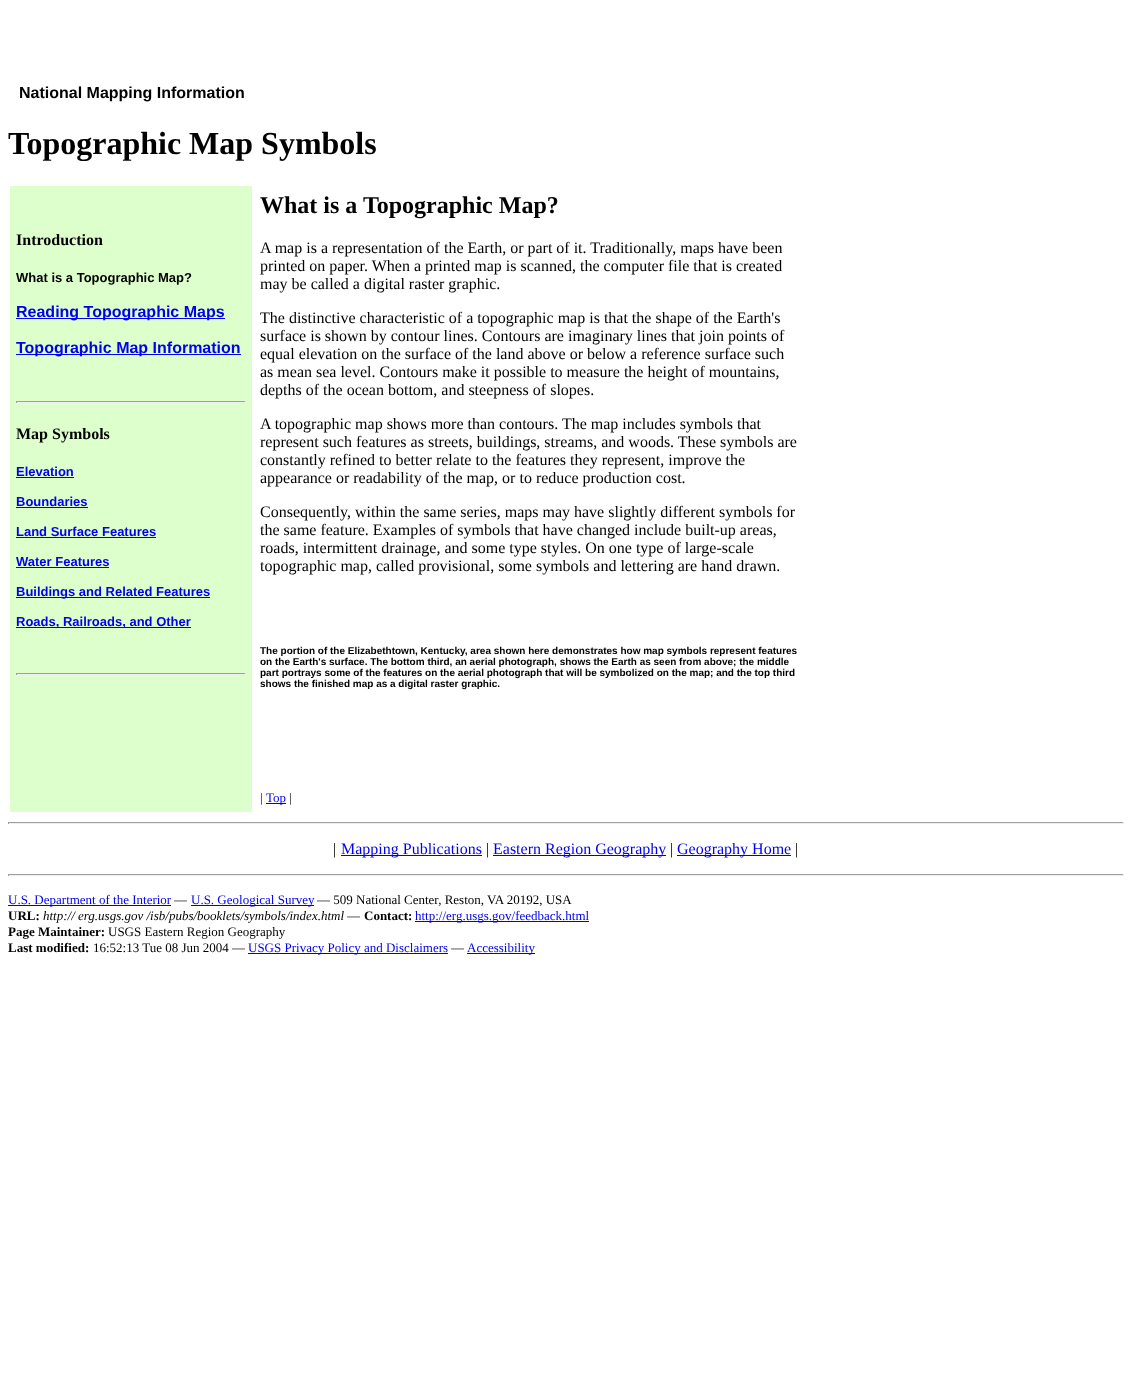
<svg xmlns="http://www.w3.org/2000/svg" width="1132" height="1374">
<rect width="100%" height="100%" fill="#fff"/>
<text x="19" y="98" style="font-family:Liberation Sans;font-size:16px;font-weight:bold;fill:#000">National Mapping Information</text>
<text x="8" y="154" style="font-family:Liberation Serif;font-size:32px;font-weight:bold;fill:#000">Topographic Map Symbols</text>
<rect x="10" y="186" width="242" height="626" fill="#dfc"/>
<text x="16" y="245" style="font-family:Liberation Serif;font-size:16px;font-weight:bold;fill:#000">Introduction</text>
<text x="16" y="282" style="font-family:Liberation Sans;font-size:13px;font-weight:bold;fill:#000">What is a Topographic Map?</text>
<rect x="16" y="318" width="209" height="1" fill="#00e"/>
<text x="16" y="317" style="font-family:Liberation Sans;font-size:16px;font-weight:bold;fill:#00e">Reading Topographic Maps</text>
<rect x="16" y="354" width="225" height="1" fill="#00e"/>
<text x="16" y="353" style="font-family:Liberation Sans;font-size:16px;font-weight:bold;fill:#00e">Topographic Map Information</text>
<rect x="16" y="401" width="230" height="1" fill="#9f9f9f"/>
<rect x="245" y="401" width="1" height="2" fill="#eee"/>
<rect x="16" y="402" width="230" height="1" fill="#eee"/>
<rect x="16" y="401" width="1" height="2" fill="#9f9f9f"/>
<text x="16" y="439" style="font-family:Liberation Serif;font-size:16px;font-weight:bold;fill:#000">Map Symbols</text>
<text x="16" y="476" style="font-family:Liberation Sans;font-size:13px;font-weight:bold;fill:#00e">Elevation</text>
<rect x="16" y="477" width="58" height="1" fill="#00e"/>
<text x="16" y="506" style="font-family:Liberation Sans;font-size:13px;font-weight:bold;fill:#00e">Boundaries</text>
<rect x="16" y="507" width="72" height="1" fill="#00e"/>
<text x="16" y="536" style="font-family:Liberation Sans;font-size:13px;font-weight:bold;fill:#00e">Land Surface Features</text>
<rect x="16" y="537" width="140" height="1" fill="#00e"/>
<text x="16" y="566" style="font-family:Liberation Sans;font-size:13px;font-weight:bold;fill:#00e">Water Features</text>
<rect x="16" y="567" width="93" height="1" fill="#00e"/>
<rect x="16" y="597" width="194" height="1" fill="#00e"/>
<text x="16" y="596" style="font-family:Liberation Sans;font-size:13px;font-weight:bold;fill:#00e">Buildings and Related Features</text>
<rect x="16" y="627" width="175" height="1" fill="#00e"/>
<text x="16" y="626" style="font-family:Liberation Sans;font-size:13px;font-weight:bold;fill:#00e">Roads, Railroads, and Other</text>
<rect x="16" y="673" width="230" height="1" fill="#9f9f9f"/>
<rect x="245" y="673" width="1" height="2" fill="#eee"/>
<rect x="16" y="674" width="230" height="1" fill="#eee"/>
<rect x="16" y="673" width="1" height="2" fill="#9f9f9f"/>
<text x="260" y="213" style="font-family:Liberation Serif;font-size:24px;font-weight:bold;fill:#000">What is a Topographic Map?</text>
<text x="260" y="253" style="font-family:Liberation Serif;font-size:16px;fill:#000">A map is a representation of the Earth, or part of it. Traditionally, maps have been</text>
<text x="260" y="271" style="font-family:Liberation Serif;font-size:16px;fill:#000">printed on paper. When a printed map is scanned, the computer file that is created</text>
<text x="260" y="289" style="font-family:Liberation Serif;font-size:16px;fill:#000">may be called a digital raster graphic.</text>
<text x="260" y="323" style="font-family:Liberation Serif;font-size:16px;fill:#000">The distinctive characteristic of a topographic map is that the shape of the Earth's</text>
<text x="260" y="341" style="font-family:Liberation Serif;font-size:16px;fill:#000">surface is shown by contour lines. Contours are imaginary lines that join points of</text>
<text x="260" y="359" style="font-family:Liberation Serif;font-size:16px;fill:#000">equal elevation on the surface of the land above or below a reference surface such</text>
<text x="260" y="377" style="font-family:Liberation Serif;font-size:16px;fill:#000">as mean sea level. Contours make it possible to measure the height of mountains,</text>
<text x="260" y="395" style="font-family:Liberation Serif;font-size:16px;fill:#000">depths of the ocean bottom, and steepness of slopes.</text>
<text x="260" y="429" style="font-family:Liberation Serif;font-size:16px;fill:#000">A topographic map shows more than contours. The map includes symbols that</text>
<text x="260" y="447" style="font-family:Liberation Serif;font-size:16px;fill:#000">represent such features as streets, buildings, streams, and woods. These symbols are</text>
<text x="260" y="465" style="font-family:Liberation Serif;font-size:16px;fill:#000">constantly refined to better relate to the features they represent, improve the</text>
<text x="260" y="483" style="font-family:Liberation Serif;font-size:16px;fill:#000">appearance or readability of the map, or to reduce production cost.</text>
<text x="260" y="517" style="font-family:Liberation Serif;font-size:16px;fill:#000">Consequently, within the same series, maps may have slightly different symbols for</text>
<text x="260" y="535" style="font-family:Liberation Serif;font-size:16px;fill:#000">the same feature. Examples of symbols that have changed include built-up areas,</text>
<text x="260" y="553" style="font-family:Liberation Serif;font-size:16px;fill:#000">roads, intermittent drainage, and some type styles. On one type of large-scale</text>
<text x="260" y="571" style="font-family:Liberation Serif;font-size:16px;fill:#000">topographic map, called provisional, some symbols and lettering are hand drawn.</text>
<text x="260" y="654" style="font-family:Liberation Sans;font-size:10px;font-weight:bold;fill:#000">The portion of the Elizabethtown, Kentucky, area shown here demonstrates how map symbols represent features</text>
<text x="260" y="665" style="font-family:Liberation Sans;font-size:10px;font-weight:bold;fill:#000">on the Earth's surface. The bottom third, an aerial photograph, shows the Earth as seen from above; the middle</text>
<text x="260" y="676" style="font-family:Liberation Sans;font-size:10px;font-weight:bold;fill:#000">part portrays some of the features on the aerial photograph that will be symbolized on the map; and the top third</text>
<text x="260" y="687" style="font-family:Liberation Sans;font-size:10px;font-weight:bold;fill:#000">shows the finished map as a digital raster graphic.</text>
<text x="260" y="802" style="font-family:Liberation Serif;font-size:13px;fill:#000">|</text>
<rect x="266" y="803" width="20" height="1" fill="#00e"/>
<text x="266" y="802" style="font-family:Liberation Serif;font-size:13px;fill:#00e">Top</text>
<text x="289" y="802" style="font-family:Liberation Serif;font-size:13px;fill:#000">|</text>
<rect x="8" y="822" width="1116" height="1" fill="#9f9f9f"/>
<rect x="1123" y="822" width="1" height="2" fill="#eee"/>
<rect x="8" y="823" width="1116" height="1" fill="#eee"/>
<rect x="8" y="822" width="1" height="2" fill="#9f9f9f"/>
<text x="333" y="854" style="font-family:Liberation Serif;font-size:16px;fill:#000">|</text>
<rect x="341" y="855" width="141" height="1" fill="#00e"/>
<text x="341" y="854" style="font-family:Liberation Serif;font-size:16px;fill:#00e">Mapping Publications</text>
<text x="486" y="854" style="font-family:Liberation Serif;font-size:16px;fill:#000">|</text>
<rect x="493" y="855" width="173" height="1" fill="#00e"/>
<text x="493" y="854" style="font-family:Liberation Serif;font-size:16px;fill:#00e">Eastern Region Geography</text>
<text x="670" y="854" style="font-family:Liberation Serif;font-size:16px;fill:#000">|</text>
<rect x="677" y="855" width="114" height="1" fill="#00e"/>
<text x="677" y="854" style="font-family:Liberation Serif;font-size:16px;fill:#00e">Geography Home</text>
<text x="795" y="854" style="font-family:Liberation Serif;font-size:16px;fill:#000">|</text>
<rect x="8" y="874" width="1116" height="1" fill="#9f9f9f"/>
<rect x="1123" y="874" width="1" height="2" fill="#eee"/>
<rect x="8" y="875" width="1116" height="1" fill="#eee"/>
<rect x="8" y="874" width="1" height="2" fill="#9f9f9f"/>
<rect x="8" y="905" width="163" height="1" fill="#00e"/>
<text x="8" y="904" style="font-family:Liberation Serif;font-size:13px;fill:#00e">U.S. Department of the Interior</text>
<text x="174" y="904" style="font-family:Liberation Serif;font-size:13px;fill:#000">—</text>
<rect x="191" y="905" width="123" height="1" fill="#00e"/>
<text x="191" y="904" style="font-family:Liberation Serif;font-size:13px;fill:#00e">U.S. Geological Survey</text>
<text x="317" y="904" style="font-family:Liberation Serif;font-size:13px;fill:#000">— 509 National Center, Reston, VA 20192, USA</text>
<text x="8" y="920" style="font-family:Liberation Serif;font-size:13px;font-weight:bold;fill:#000">URL:</text>
<text x="43" y="920" style="font-family:Liberation Serif;font-size:13px;font-style:italic;fill:#000">http:// erg.usgs.gov /isb/pubs/booklets/symbols/index.html</text>
<text x="347" y="920" style="font-family:Liberation Serif;font-size:13px;fill:#000">—</text>
<text x="364" y="920" style="font-family:Liberation Serif;font-size:13px;font-weight:bold;fill:#000">Contact:</text>
<rect x="415" y="921" width="174" height="1" fill="#00e"/>
<text x="415" y="920" style="font-family:Liberation Serif;font-size:13px;fill:#00e">http://erg.usgs.gov/feedback.html</text>
<text x="8" y="936" style="font-family:Liberation Serif;font-size:13px;font-weight:bold;fill:#000">Page Maintainer:</text>
<text x="108" y="936" style="font-family:Liberation Serif;font-size:13px;fill:#000">USGS Eastern Region Geography</text>
<text x="8" y="952" style="font-family:Liberation Serif;font-size:13px;font-weight:bold;fill:#000">Last modified:</text>
<text x="93" y="952" style="font-family:Liberation Serif;font-size:13px;fill:#000">16:52:13 Tue 08 Jun 2004 —</text>
<rect x="248" y="953" width="200" height="1" fill="#00e"/>
<text x="248" y="952" style="font-family:Liberation Serif;font-size:13px;fill:#00e">USGS Privacy Policy and Disclaimers</text>
<text x="451" y="952" style="font-family:Liberation Serif;font-size:13px;fill:#000">—</text>
<rect x="467" y="953" width="68" height="1" fill="#00e"/>
<text x="467" y="952" style="font-family:Liberation Serif;font-size:13px;fill:#00e">Accessibility</text>
</svg>
